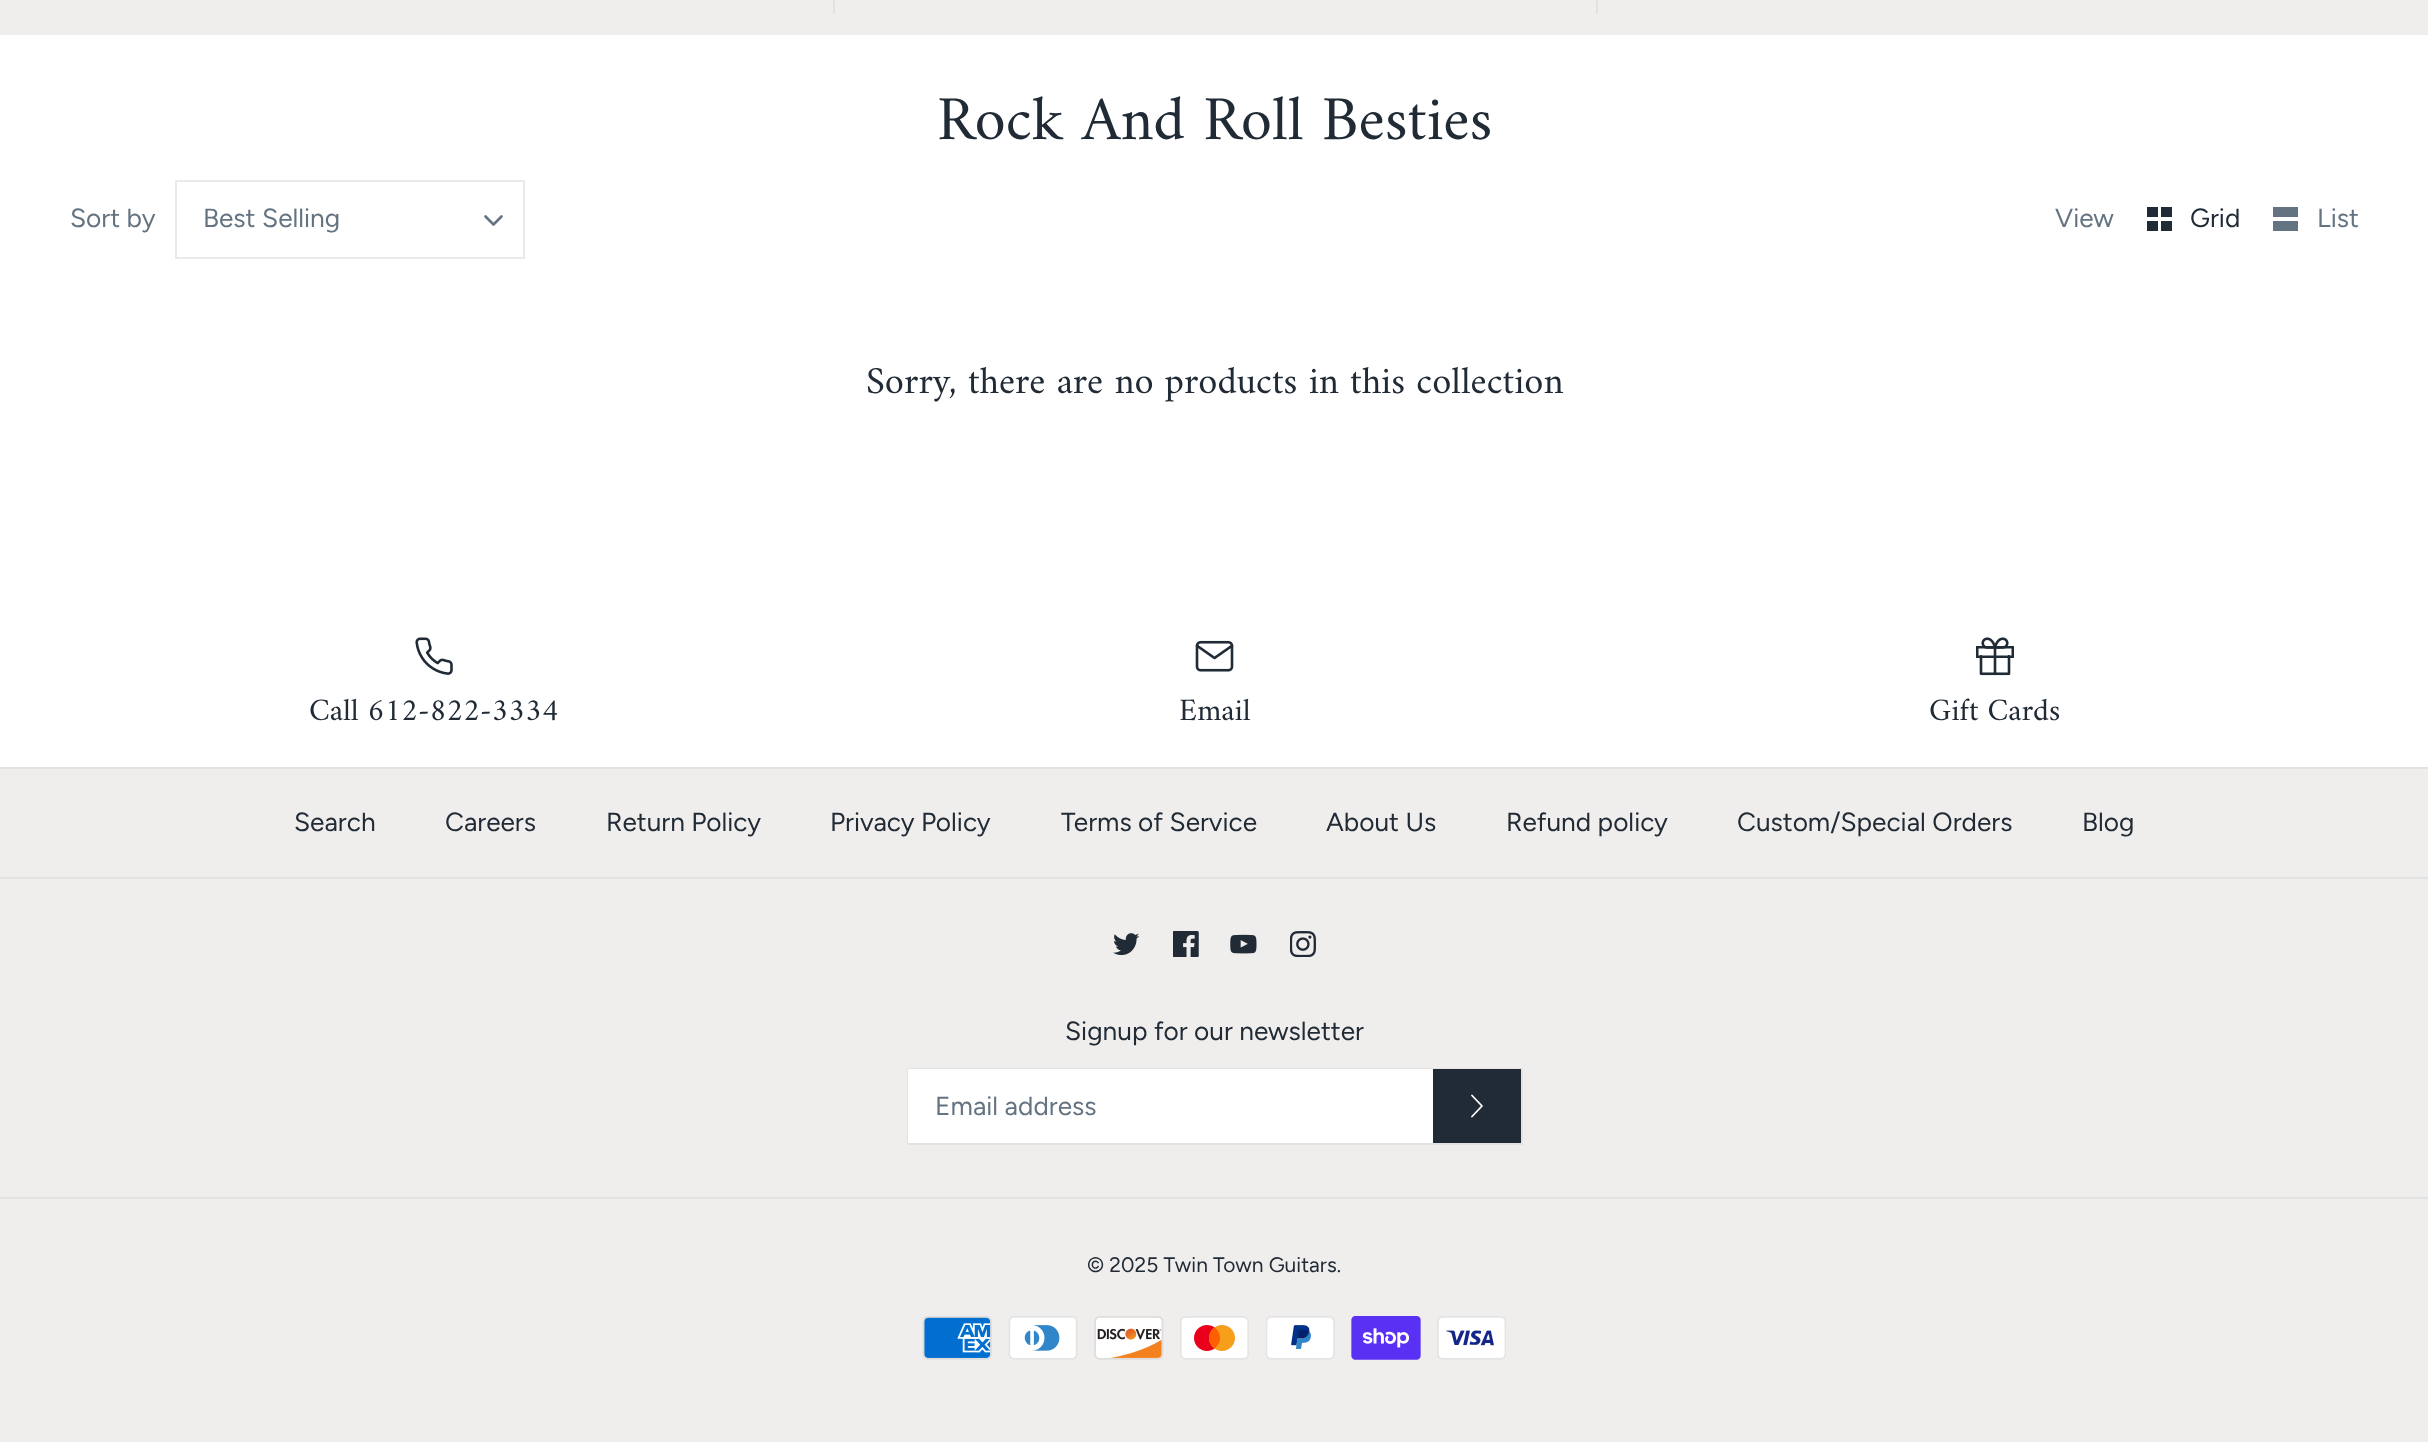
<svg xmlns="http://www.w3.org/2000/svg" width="2428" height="1442">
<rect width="100%" height="100%" fill="#fff"/>
<rect width="2428" height="35" fill="#f0eeed"/>
<rect x="833" width="2" height="14" fill="#e2e2e2"/>
<rect x="1596" width="2" height="14" fill="#e2e2e2"/>
<text x="937" y="139" style="font-family:Amiri;font-size:63px;fill:#212b36">Rock And Roll Besties</text>
<text x="70" y="227" style="font-family:Figtree;font-size:26.25px;fill:#637381">Sort by</text>
<rect x="176" y="181" width="348" height="77" fill="none" stroke="#e8eaec" stroke-width="2"/>
<text x="203" y="227" style="font-family:Figtree;font-size:26.25px;fill:#637381">Best Selling</text>
<path d="M485.5 216.5l8 8l8-8" fill="none" stroke="#637381" stroke-width="2.6" stroke-linecap="round" stroke-linejoin="round"/>
<text x="2055" y="227" style="font-family:Figtree;font-size:26.25px;fill:#637381">View</text>
<rect x="2147" y="207" width="11" height="10" fill="#212b36"/>
<rect x="2161" y="207" width="11" height="10" fill="#212b36"/>
<text x="2190" y="227" style="font-family:Figtree;font-size:26.25px;fill:#212b36">Grid</text>
<rect x="2147" y="221" width="11" height="10" fill="#212b36"/>
<rect x="2161" y="221" width="11" height="10" fill="#212b36"/>
<rect x="2273" y="207" width="25" height="10" fill="#637381"/>
<text x="2317" y="227" style="font-family:Figtree;font-size:26.25px;fill:#637381">List</text>
<rect x="2273" y="221" width="25" height="10" fill="#637381"/>
<text x="866" y="393" style="font-family:Amiri;font-size:38.5px;fill:#212b36">Sorry, there are no products in this collection</text>
<rect y="769" width="2428" height="673" fill="#f0eeed"/>
<image x="415" y="637" width="38" height="38" href="media/1.png"/>
<text x="309" y="720" style="font-family:Amiri;font-size:31.5px;fill:#212b36">Call 612-822-3334</text>
<image x="1195" y="640" width="39" height="32" href="media/2.png"/>
<text x="1179" y="720" style="font-family:Amiri;font-size:31.5px;fill:#212b36">Email</text>
<image x="1976" y="637" width="38" height="39" href="media/3.png"/>
<text x="1929" y="720" style="font-family:Amiri;font-size:31.5px;fill:#212b36">Gift Cards</text>
<rect y="767" width="2428" height="2" fill="#e2e2e2"/>
<rect y="877" width="2428" height="2" fill="#e2e2e2"/>
<text x="294" y="831" style="font-family:Figtree;font-size:26.25px;fill:#212b36">Search</text>
<text x="445" y="831" style="font-family:Figtree;font-size:26.25px;fill:#212b36">Careers</text>
<text x="606" y="831" style="font-family:Figtree;font-size:26.25px;fill:#212b36">Return Policy</text>
<text x="830" y="831" style="font-family:Figtree;font-size:26.25px;fill:#212b36">Privacy Policy</text>
<text x="1061" y="831" style="font-family:Figtree;font-size:26.25px;fill:#212b36">Terms of Service</text>
<text x="1326" y="831" style="font-family:Figtree;font-size:26.25px;fill:#212b36">About Us</text>
<text x="1506" y="831" style="font-family:Figtree;font-size:26.25px;fill:#212b36">Refund policy</text>
<text x="1737" y="831" style="font-family:Figtree;font-size:26.25px;fill:#212b36">Custom/Special Orders</text>
<text x="2082" y="831" style="font-family:Figtree;font-size:26.25px;fill:#212b36">Blog</text>
<image x="1113" y="933" width="26" height="23" href="media/4.png"/>
<image x="1173" y="931" width="26" height="26" href="media/5.png"/>
<image x="1230" y="934" width="27" height="20" href="media/6.png"/>
<image x="1290" y="931" width="26" height="26" href="media/7.png"/>
<rect y="1197" width="2428" height="2" fill="#e2e2e2"/>
<text x="1065" y="1040" style="font-family:Figtree;font-size:26.25px;fill:#212b36">Signup for our newsletter</text>
<rect x="908" y="1069" width="614" height="75" fill="none" stroke="#e2e2e2" stroke-width="2"/>
<rect x="908" y="1069" width="525" height="74" fill="#fff"/>
<text x="935" y="1115" style="font-family:Figtree;font-size:26.25px;fill:#637381">Email address</text>
<rect x="1433" y="1069" width="88" height="74" fill="#212b36"/>
<path d="M1472 1116.5l10-10.5l-10-10.5" fill="none" stroke="#fff" stroke-width="1.8" stroke-linecap="round" stroke-linejoin="round"/>
<text x="1087" y="1272" style="font-family:Figtree;font-size:21px;fill:#212b36">© 2025 Twin Town Guitars.</text>
<image x="922" y="1316" width="70" height="44" href="media/8.png"/>
<image x="1008" y="1316" width="70" height="44" href="media/9.png"/>
<image x="1094" y="1316" width="70" height="44" href="media/10.png"/>
<image x="1180" y="1316" width="69" height="44" href="media/11.png"/>
<image x="1266" y="1316" width="69" height="44" href="media/12.png"/>
<image x="1351" y="1316" width="70" height="44" href="media/13.png"/>
<image x="1437" y="1316" width="69" height="44" href="media/14.png"/>
</svg>
